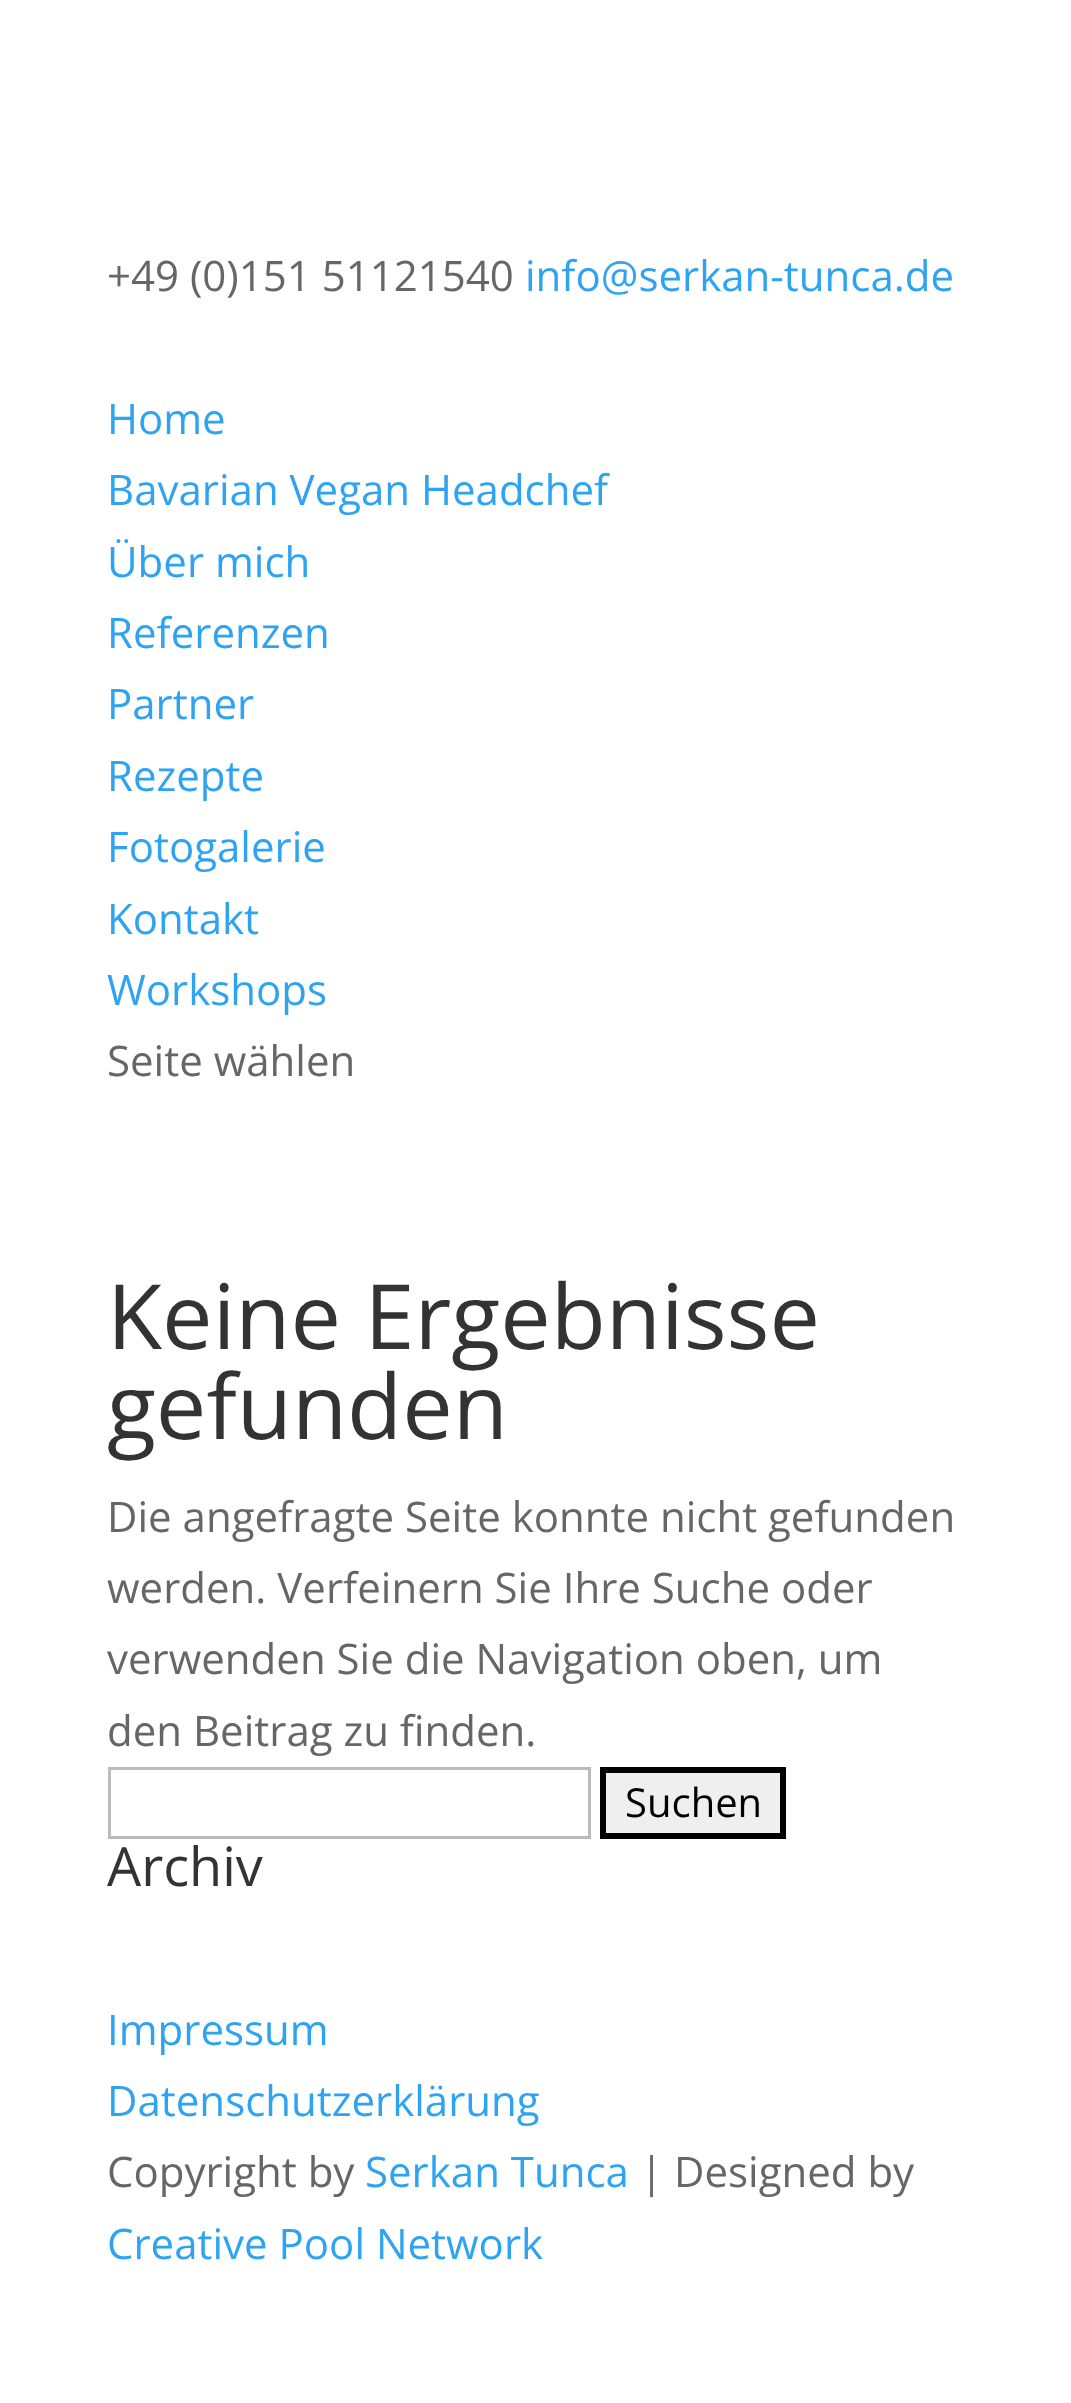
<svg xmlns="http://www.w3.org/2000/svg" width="1071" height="2403">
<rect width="100%" height="100%" fill="#fff"/>
<text x="107" y="291" style="font-family:Open Sans;font-size:42px;fill:#666">+49 (0)151 51121540</text>
<text x="525" y="291" style="font-family:Open Sans;font-size:42px;fill:#2ea3f2">info@serkan-tunca.de</text>
<text x="107" y="434" style="font-family:Open Sans;font-size:42px;fill:#2ea3f2">Home</text>
<text x="107" y="505" style="font-family:Open Sans;font-size:42px;fill:#2ea3f2">Bavarian Vegan Headchef</text>
<text x="107" y="577" style="font-family:Open Sans;font-size:42px;fill:#2ea3f2">Über mich</text>
<text x="107" y="648" style="font-family:Open Sans;font-size:42px;fill:#2ea3f2">Referenzen</text>
<text x="107" y="719" style="font-family:Open Sans;font-size:42px;fill:#2ea3f2">Partner</text>
<text x="107" y="791" style="font-family:Open Sans;font-size:42px;fill:#2ea3f2">Rezepte</text>
<text x="107" y="862" style="font-family:Open Sans;font-size:42px;fill:#2ea3f2">Fotogalerie</text>
<text x="107" y="934" style="font-family:Open Sans;font-size:42px;fill:#2ea3f2">Kontakt</text>
<text x="107" y="1005" style="font-family:Open Sans;font-size:42px;fill:#2ea3f2">Workshops</text>
<text x="107" y="1076" style="font-family:Open Sans;font-size:42px;fill:#666">Seite wählen</text>
<text x="107" y="1349" style="font-family:Open Sans;font-size:90px;fill:#333">Keine Ergebnisse</text>
<text x="107" y="1439" style="font-family:Open Sans;font-size:90px;fill:#333">gefunden</text>
<text x="107" y="1532" style="font-family:Open Sans;font-size:42px;fill:#666">Die angefragte Seite konnte nicht gefunden</text>
<text x="107" y="1603" style="font-family:Open Sans;font-size:42px;fill:#666">werden. Verfeinern Sie Ihre Suche oder</text>
<text x="107" y="1674" style="font-family:Open Sans;font-size:42px;fill:#666">verwenden Sie die Navigation oben, um</text>
<text x="107" y="1746" style="font-family:Open Sans;font-size:42px;fill:#666">den Beitrag zu finden.</text>
<rect x="109.5" y="1768.5" width="480" height="69" fill="none" stroke="#bbb" stroke-width="3"/>
<rect x="603" y="1770" width="180" height="66" fill="#efefef" stroke="#000" stroke-width="6"/>
<text x="625" y="1817" style="font-family:Open Sans;font-size:40px;fill:#000">Suchen</text>
<text x="107" y="1886" style="font-family:Open Sans;font-size:54px;fill:#333">Archiv</text>
<text x="107" y="2045" style="font-family:Open Sans;font-size:42px;fill:#2ea3f2">Impressum</text>
<text x="107" y="2116" style="font-family:Open Sans;font-size:42px;fill:#2ea3f2">Datenschutzerklärung</text>
<text x="107" y="2187" style="font-family:Open Sans;font-size:42px;fill:#666">Copyright by</text>
<text x="365" y="2187" style="font-family:Open Sans;font-size:42px;fill:#2ea3f2">Serkan Tunca</text>
<text x="640" y="2187" style="font-family:Open Sans;font-size:42px;fill:#666">| Designed by</text>
<text x="107" y="2259" style="font-family:Open Sans;font-size:42px;fill:#2ea3f2">Creative Pool Network</text>
</svg>
